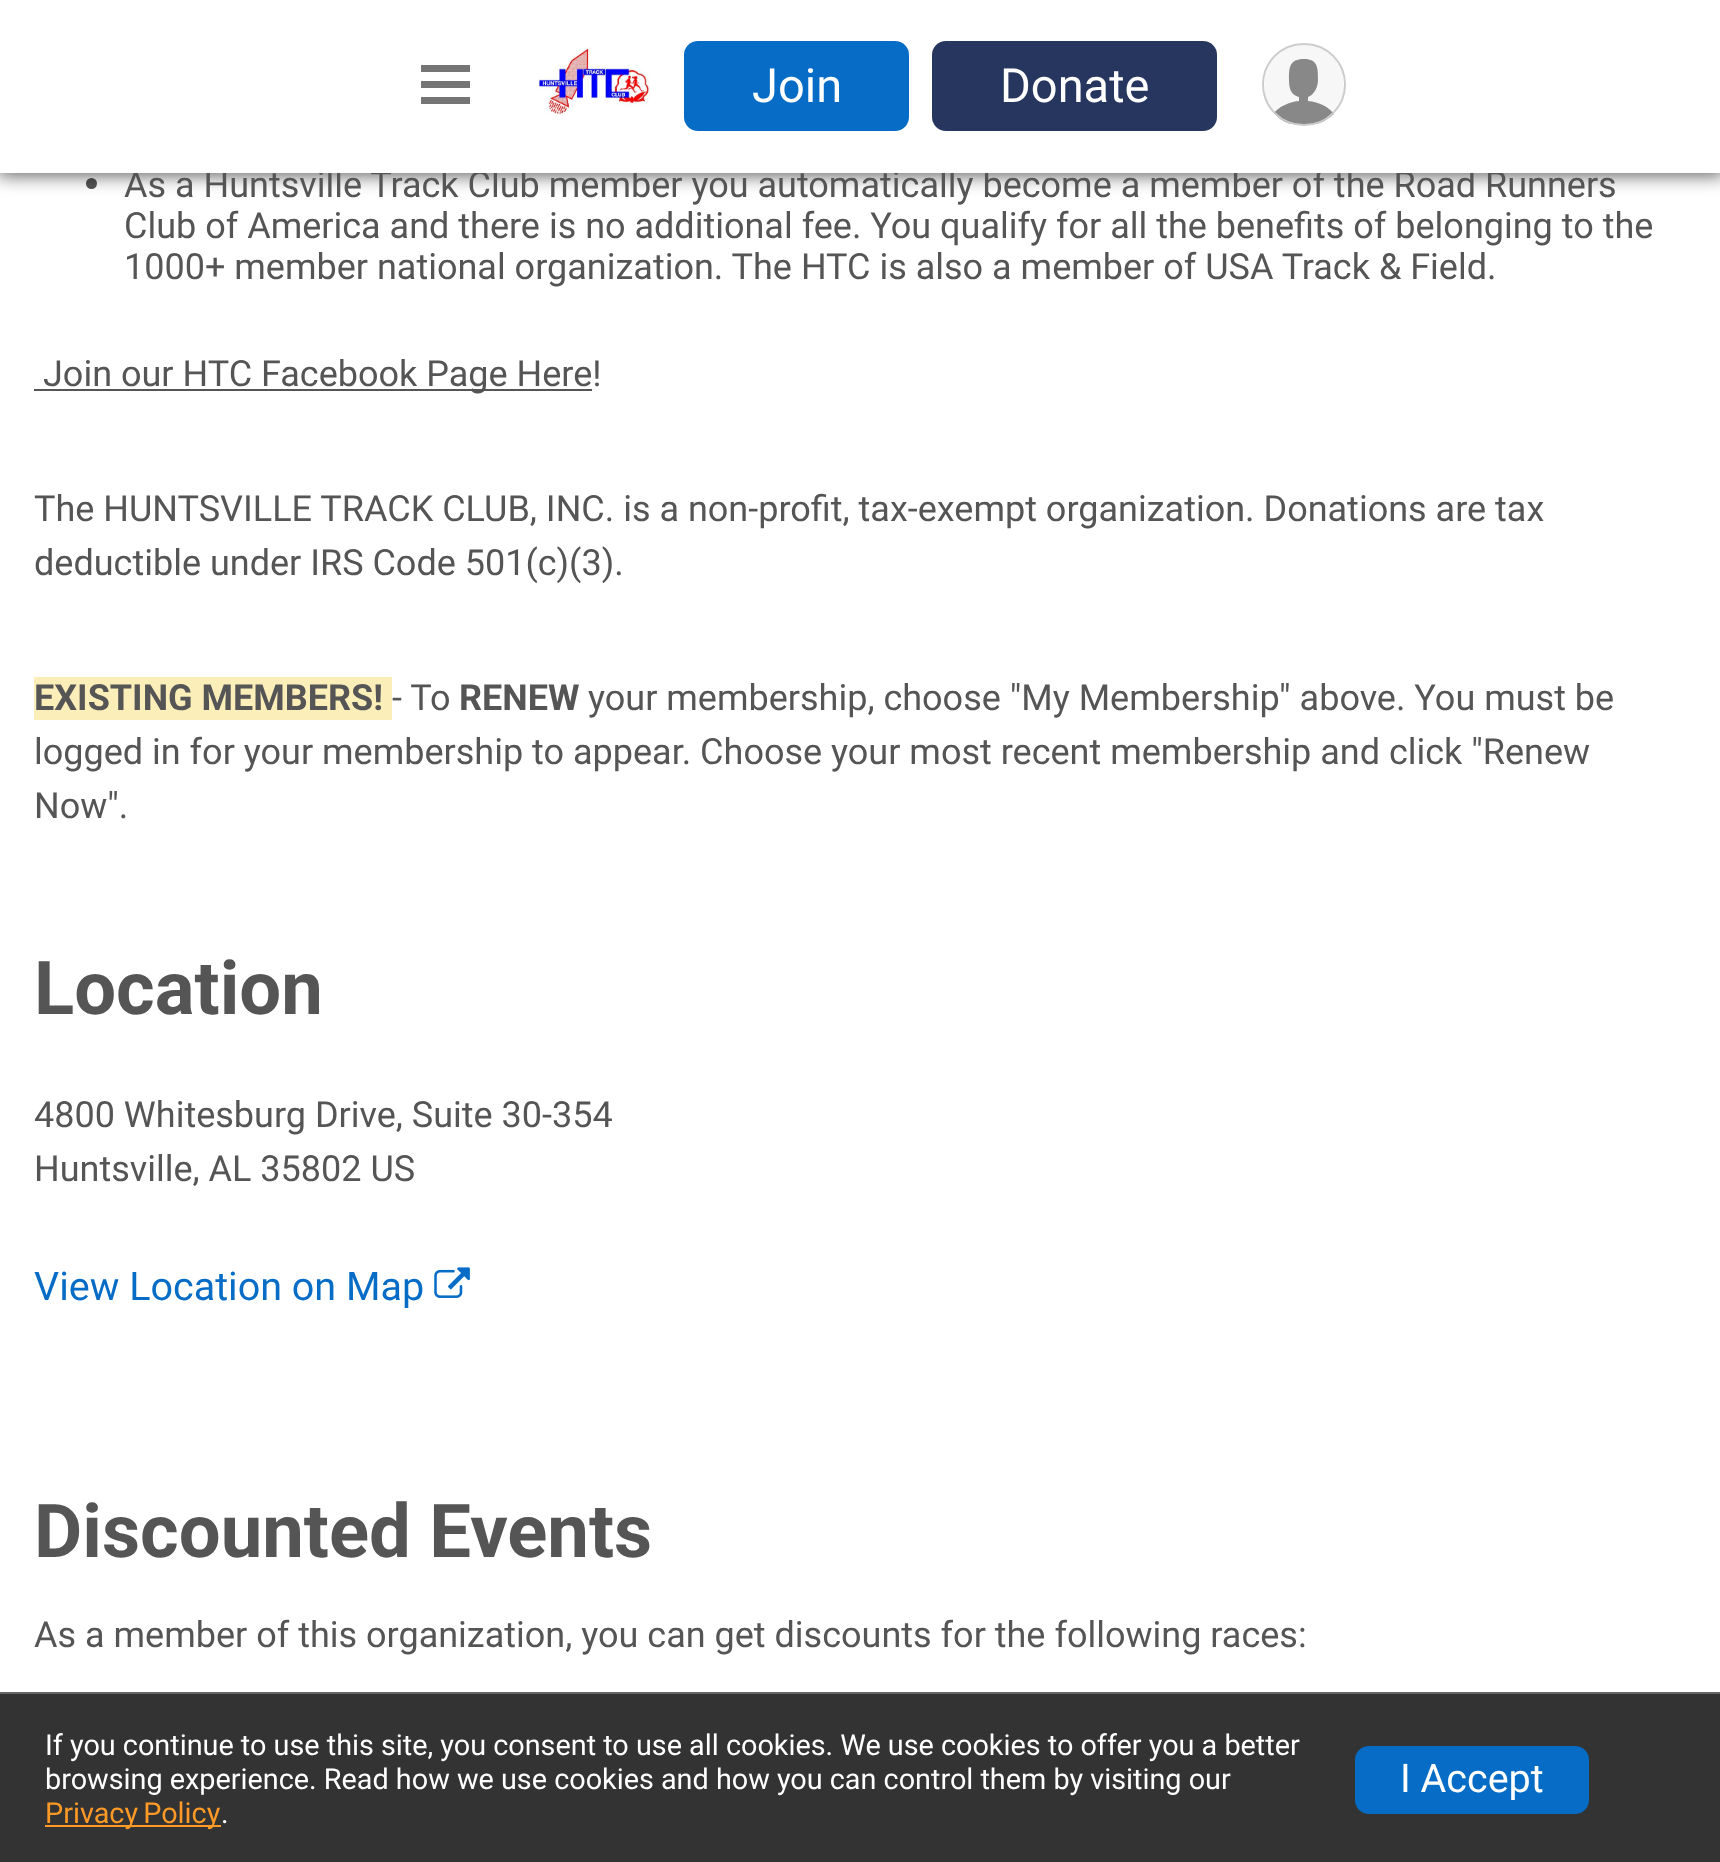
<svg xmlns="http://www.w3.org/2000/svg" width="1720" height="1862">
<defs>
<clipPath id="clip1"><rect x="1262" y="43" width="84" height="83" rx="41.5"/></clipPath>
</defs>
<rect width="100%" height="100%" fill="#fff"/>
<circle cx="91.5" cy="183.5" r="5.5" fill="#555"/>
<rect x="-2" y="-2" width="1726" height="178" fill="#00000099" filter="blur(9px)"/>
<text x="124" y="197" style="font-family:Roboto;font-size:36px;fill:#555">As a Huntsville Track Club member you automatically become a member of the Road Runners</text>
<rect width="1720" height="173" fill="#fff"/>
<path d="M470 65v7h-49v-7zm0 16v7h-49v-7zm0 16v7h-49v-7z" fill="#757575"/>
<image x="538" y="47" width="112" height="68" href="media/1.png"/>
<rect x="684" y="41" width="225" height="90" rx="14" fill="#066cc6"/>
<text x="752" y="102" style="font-family:Roboto;font-size:47px;fill:#fff">Join</text>
<rect x="932" y="41" width="285" height="90" rx="14" fill="#27365e"/>
<text x="1000" y="102" style="font-family:Roboto;font-size:47px;fill:#fff">Donate</text>
<g clip-path="url(#clip1)">
<rect x="1265" y="45" width="78" height="79" fill="#f7f7f7"/>
</g>
<path d="M1308 101c11 1 21 6 26 13c-5 4-10 8-17 10h-26c-7-2-13-6-17-11c5-6 14-11 25-12v-4c-6-2-10-5-10-17c0-12 0-21 15-21c14 0 14 9 14 21c0 7-4 15-10 17z" fill="#888"/>
<rect x="1263" y="44" width="82" height="81" rx="40.5" fill="none" stroke="#ccc" stroke-width="2"/>
<text x="124" y="238" style="font-family:Roboto;font-size:36px;fill:#555">Club of America and there is no additional fee. You qualify for all the benefits of belonging to the</text>
<text x="124" y="279" style="font-family:Roboto;font-size:36px;fill:#555">1000+ member national organization. The HTC is also a member of USA Track &amp; Field.</text>
<rect x="34" y="389" width="558" height="2" fill="#555"/>
<text x="43" y="386" style="font-family:Roboto;font-size:36px;fill:#555">Join our HTC Facebook Page Here!</text>
<text x="34" y="521" style="font-family:Roboto;font-size:36px;fill:#555">The HUNTSVILLE TRACK CLUB, INC. is a non-profit, tax-exempt organization. Donations are tax</text>
<text x="34" y="575" style="font-family:Roboto;font-size:36px;fill:#555">deductible under IRS Code 501(c)(3).</text>
<rect x="34" y="677" width="358" height="43" fill="#fbeeb8"/>
<text x="34" y="710" style="font-family:Roboto;font-size:36px;font-weight:bold;fill:#555">EXISTING MEMBERS!</text>
<text x="392" y="710" style="font-family:Roboto;font-size:36px;fill:#555">- To</text>
<text x="459" y="710" style="font-family:Roboto;font-size:36px;font-weight:bold;fill:#555">RENEW</text>
<text x="588" y="710" style="font-family:Roboto;font-size:36px;fill:#555">your membership, choose "My Membership" above. You must be</text>
<text x="34" y="764" style="font-family:Roboto;font-size:36px;fill:#555">logged in for your membership to appear. Choose your most recent membership and click "Renew</text>
<text x="34" y="818" style="font-family:Roboto;font-size:36px;fill:#555">Now".</text>
<text x="34" y="1014" style="font-family:Roboto;font-size:74.25px;font-weight:bold;fill:#555">Location</text>
<text x="34" y="1127" style="font-family:Roboto;font-size:36px;fill:#555">4800 Whitesburg Drive, Suite 30-354</text>
<text x="34" y="1181" style="font-family:Roboto;font-size:36px;fill:#555">Huntsville, AL 35802 US</text>
<text x="34" y="1300" style="font-family:Roboto;font-size:39.5px;fill:#066cc6">View Location on Map</text>
<image x="434" y="1267" width="36" height="31" href="media/2.png"/>
<text x="34" y="1557" style="font-family:Roboto;font-size:74.25px;font-weight:bold;fill:#555">Discounted Events</text>
<text x="34" y="1647" style="font-family:Roboto;font-size:36px;fill:#555">As a member of this organization, you can get discounts for the following races:</text>
<rect y="1694" width="1720" height="168" fill="#333"/>
<rect y="1692" width="1720" height="2" fill="#666"/>
<text x="45" y="1755" style="font-family:Roboto;font-size:28.8px;fill:#fff">If you continue to use this site, you consent to use all cookies. We use cookies to offer you a better</text>
<text x="45" y="1789" style="font-family:Roboto;font-size:28.8px;fill:#fff">browsing experience. Read how we use cookies and how you can control them by visiting our</text>
<rect x="45" y="1825" width="176" height="2" fill="#fd9926"/>
<text x="45" y="1823" word-spacing="-2" style="font-family:Roboto;font-size:28.8px;fill:#fd9926">Privacy Policy</text>
<text x="221" y="1823" style="font-family:Roboto;font-size:28.8px;fill:#fff">.</text>
<rect x="1355" y="1746" width="234" height="68" rx="14" fill="#066cc6"/>
<text x="1400" y="1792" style="font-family:Roboto;font-size:39.5px;fill:#fff">I Accept</text>
</svg>
